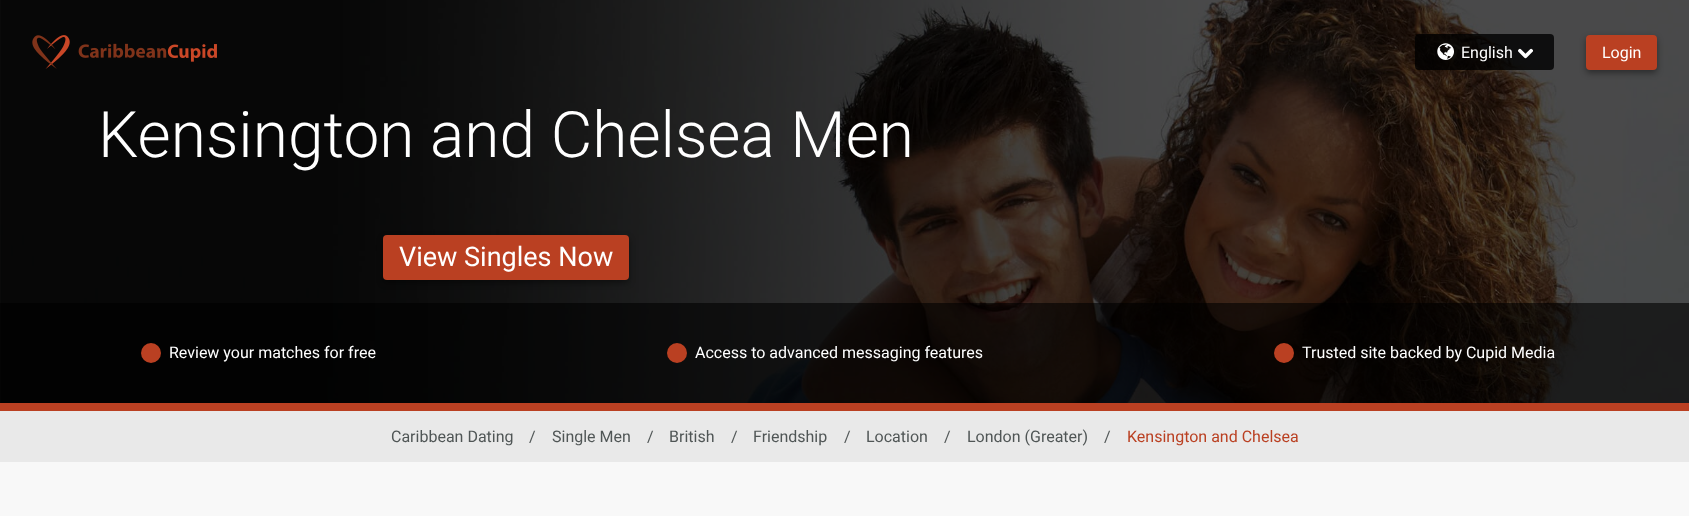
<svg xmlns="http://www.w3.org/2000/svg" width="1689" height="516">
<rect width="100%" height="100%" fill="#f8f8f8"/>
<image x="0" y="0" width="1689" height="403" href="media/5.png"/>
<image x="32" y="35" width="38" height="34" href="media/1.png"/>
<image x="78" y="43" width="139" height="19" href="media/2.png"/>
<rect x="1415" y="34" width="139" height="36" rx="4" fill="#000000cc"/>
<image x="1437" y="43" width="17" height="17" href="media/3.png"/>
<text x="1461" y="58" style="font-family:Roboto;font-size:16px;fill:#fff">English</text>
<image x="1518" y="48" width="15" height="11" href="media/4.png"/>
<rect x="1586" y="38" width="71" height="35" rx="4" fill="#00000066" filter="blur(3px)"/>
<rect x="1586" y="35" width="71" height="35" rx="4" fill="#ba4022"/>
<text x="1602" y="58" style="font-family:Roboto;font-size:16px;fill:#fff">Login</text>
<text x="98" y="157" style="font-family:Roboto;font-size:64px;font-weight:300;fill:#fff">Kensington and Chelsea Men</text>
<rect x="383" y="238" width="246" height="45" rx="4" fill="#00000066" filter="blur(3px)"/>
<rect x="383" y="235" width="246" height="45" rx="4" fill="#ba4022"/>
<text x="399" y="266" style="font-family:Roboto;font-size:27px;fill:#fff">View Singles Now</text>
<rect y="303" width="1689" height="100" fill="#00000099"/>
<circle cx="151" cy="353" r="10" fill="#ba4022"/>
<text x="169" y="358" style="font-family:Roboto;font-size:16px;fill:#fff">Review your matches for free</text>
<circle cx="677" cy="353" r="10" fill="#ba4022"/>
<text x="695" y="358" style="font-family:Roboto;font-size:16px;fill:#fff">Access to advanced messaging features</text>
<circle cx="1284" cy="353" r="10" fill="#ba4022"/>
<text x="1302" y="358" style="font-family:Roboto;font-size:16px;fill:#fff">Trusted site backed by Cupid Media</text>
<rect y="403" width="1689" height="8" fill="#ba4022"/>
<rect y="411" width="1689" height="51" fill="#e9e9e9"/>
<text x="391" y="442" style="font-family:Roboto;font-size:16px;fill:#505656">Caribbean Dating</text>
<text x="529" y="442" style="font-family:Roboto;font-size:16px;fill:#505656">/</text>
<text x="552" y="442" style="font-family:Roboto;font-size:16px;fill:#505656">Single Men</text>
<text x="647" y="442" style="font-family:Roboto;font-size:16px;fill:#505656">/</text>
<text x="669" y="442" style="font-family:Roboto;font-size:16px;fill:#505656">British</text>
<text x="731" y="442" style="font-family:Roboto;font-size:16px;fill:#505656">/</text>
<text x="753" y="442" style="font-family:Roboto;font-size:16px;fill:#505656">Friendship</text>
<text x="844" y="442" style="font-family:Roboto;font-size:16px;fill:#505656">/</text>
<text x="866" y="442" style="font-family:Roboto;font-size:16px;fill:#505656">Location</text>
<text x="944" y="442" style="font-family:Roboto;font-size:16px;fill:#505656">/</text>
<text x="967" y="442" style="font-family:Roboto;font-size:16px;fill:#505656">London (Greater)</text>
<text x="1104" y="442" style="font-family:Roboto;font-size:16px;fill:#505656">/</text>
<text x="1127" y="442" style="font-family:Roboto;font-size:16px;fill:#ba4022">Kensington and Chelsea</text>
</svg>
